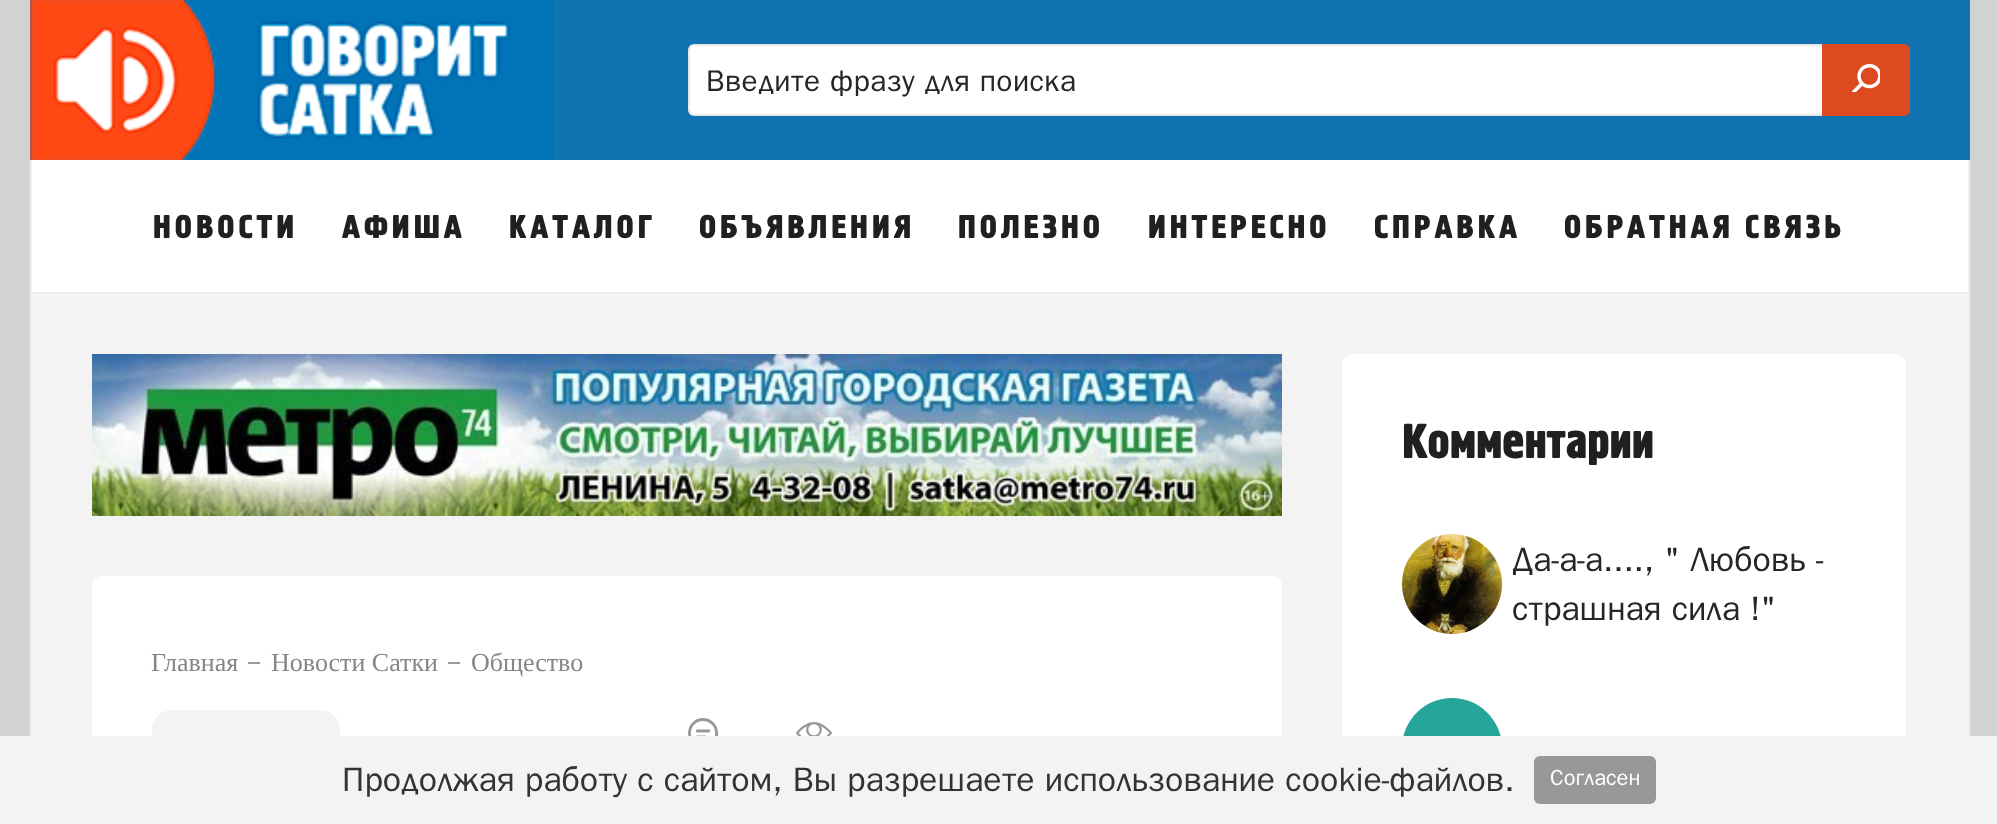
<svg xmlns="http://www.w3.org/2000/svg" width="1997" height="824">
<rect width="100%" height="100%" fill="#d2d2d2"/>
<rect x="554" width="1416" height="160" fill="#1173b2"/>
<image x="30" y="0" width="524" height="160" href="media/1.png"/>
<rect x="689" y="45" width="1208" height="70" rx="5" fill="#fff" stroke="#e8e8e8" stroke-width="2"/>
<text x="706" y="91" style="font-family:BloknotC;font-size:30px;letter-spacing:0.4px;fill:#262626">Введите фразу для поиска</text>
<path d="M1822 44h82c3.5 0 6 2.5 6 6v60c0 3.5-2.5 6-6 6h-82z" fill="#dd4a1f"/>
<image x="1852" y="64" width="28" height="28" href="media/2.png"/>
<rect x="32" y="160" width="1936" height="132" fill="#fff"/>
<rect x="1968" y="160" width="2" height="576" fill="#eee"/>
<rect x="30" y="292" width="1940" height="2" fill="#eee"/>
<rect x="30" y="160" width="2" height="576" fill="#eee"/>
<text x="153" y="238" style="font-family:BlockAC;font-size:32px;letter-spacing:4px;fill:#202020">НОВОСТИ</text>
<text x="342" y="238" style="font-family:BlockAC;font-size:32px;letter-spacing:4px;fill:#202020">АФИША</text>
<text x="509" y="238" style="font-family:BlockAC;font-size:32px;letter-spacing:4px;fill:#202020">КАТАЛОГ</text>
<text x="699" y="238" style="font-family:BlockAC;font-size:32px;letter-spacing:4px;fill:#202020">ОБЪЯВЛЕНИЯ</text>
<text x="958" y="238" style="font-family:BlockAC;font-size:32px;letter-spacing:4px;fill:#202020">ПОЛЕЗНО</text>
<text x="1148" y="238" style="font-family:BlockAC;font-size:32px;letter-spacing:4px;fill:#202020">ИНТЕРЕСНО</text>
<text x="1374" y="238" style="font-family:BlockAC;font-size:32px;letter-spacing:4px;fill:#202020">СПРАВКА</text>
<text x="1564" y="238" style="font-family:BlockAC;font-size:32px;letter-spacing:4px;fill:#202020">ОБРАТНАЯ СВЯЗЬ</text>
<rect x="32" y="294" width="1936" height="442" fill="#f3f3f3"/>
<rect x="1342" y="354" width="564" height="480" rx="10" fill="#fff"/>
<text x="1402" y="458" style="font-family:BlockAC;font-size:47.5px;fill:#202020">Комментарии</text>
<image x="1402" y="534" width="100" height="100" href="media/3.png"/>
<text x="1512" y="571" style="font-family:BloknotC;font-size:34px;fill:#262626">Да-а-а...., " Любовь -</text>
<text x="1512" y="620" style="font-family:BloknotC;font-size:34px;fill:#262626">страшная сила !"</text>
<circle cx="1452" cy="748" r="50" fill="#26a69a"/>
<image x="92" y="354" width="1190" height="162" href="media/4.png"/>
<rect x="92" y="576" width="1190" height="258" rx="10" fill="#fff"/>
<text x="151" y="671" style="font-family:Liberation Serif;font-size:26px;fill:#868686">Главная</text>
<rect x="248" y="662" width="12" height="2" fill="#999"/>
<text x="271" y="671" style="font-family:Liberation Serif;font-size:26px;fill:#868686">Новости Сатки</text>
<rect x="448" y="662" width="12" height="2" fill="#999"/>
<text x="471" y="671" style="font-family:Liberation Serif;font-size:26px;fill:#868686">Общество</text>
<rect x="152" y="710" width="188" height="42" rx="20" fill="#f3f3f3"/>
<image x="688" y="718" width="30" height="18" href="media/5.png"/>
<image x="796" y="722" width="36" height="14" href="media/6.png"/>
<rect y="736" width="1997" height="88" fill="#f3f3f3"/>
<text x="342" y="791" style="font-family:BloknotC;font-size:34px;fill:#333">Продолжая работу с сайтом, Вы разрешаете использование cookie-файлов.</text>
<rect x="1534" y="756" width="122" height="48" rx="6" fill="#989898"/>
<text x="1550" y="785" style="font-family:BloknotC;font-size:22px;fill:#fff">Согласен</text>
</svg>
